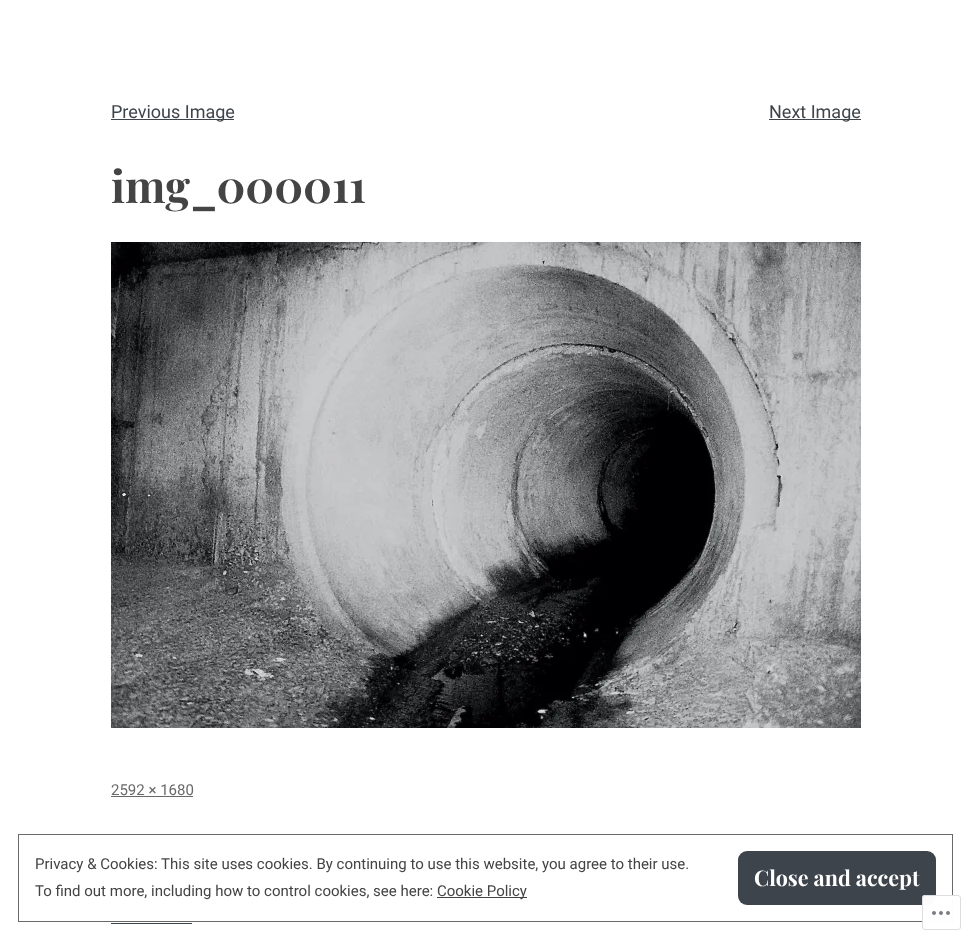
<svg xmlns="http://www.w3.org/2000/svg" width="971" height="940">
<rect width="100%" height="100%" fill="#fff"/>
<rect x="111" y="119" width="123" height="1" fill="#3e444b"/>
<text x="111" y="118" style="font-family:Roboto;font-size:18px;fill:#3e444b">Previous Image</text>
<rect x="769" y="119" width="92" height="1" fill="#3e444b"/>
<text x="769" y="118" style="font-family:Roboto;font-size:18px;fill:#3e444b">Next Image</text>
<text x="111" y="203" style="font-family:Playfair Display;font-size:44.75px;font-weight:bold;fill:#444">img_000011</text>
<image x="111" y="242" width="750" height="486" href="media/1.png"/>
<text x="111" y="795" style="font-family:Roboto;font-size:15px;fill:#696969">2592 × 1680</text>
<rect x="111" y="796" width="82" height="1" fill="#696969"/>
<rect x="111" y="923" width="81" height="1" fill="#3e444b"/>
<rect x="18.5" y="834.5" width="934" height="87" fill="none" stroke="#696969"/>
<text x="35" y="869" style="font-family:Roboto;font-size:15px;fill:#444">Privacy &amp; Cookies: This site uses cookies. By continuing to use this website, you agree to their use.</text>
<rect x="738" y="851" width="198" height="54" rx="9" fill="#3e444b"/>
<text x="754" y="886" style="font-family:Playfair Display;font-size:21.5px;font-weight:bold;fill:#fff">Close and accept</text>
<text x="35" y="896" style="font-family:Roboto;font-size:15px;fill:#444">To find out more, including how to control cookies, see here:</text>
<rect x="437" y="897" width="90" height="1" fill="#444"/>
<text x="437" y="896" style="font-family:Roboto;font-size:15px;fill:#444">Cookie Policy</text>
<rect x="922" y="895" width="39" height="35" rx="3" fill="#fffffffa"/>
<rect x="922.5" y="895.5" width="38" height="34" rx="2.5" fill="none" stroke="#dcdcdefa"/>
<image x="932" y="911" width="18" height="4" href="media/2.png"/>
</svg>
